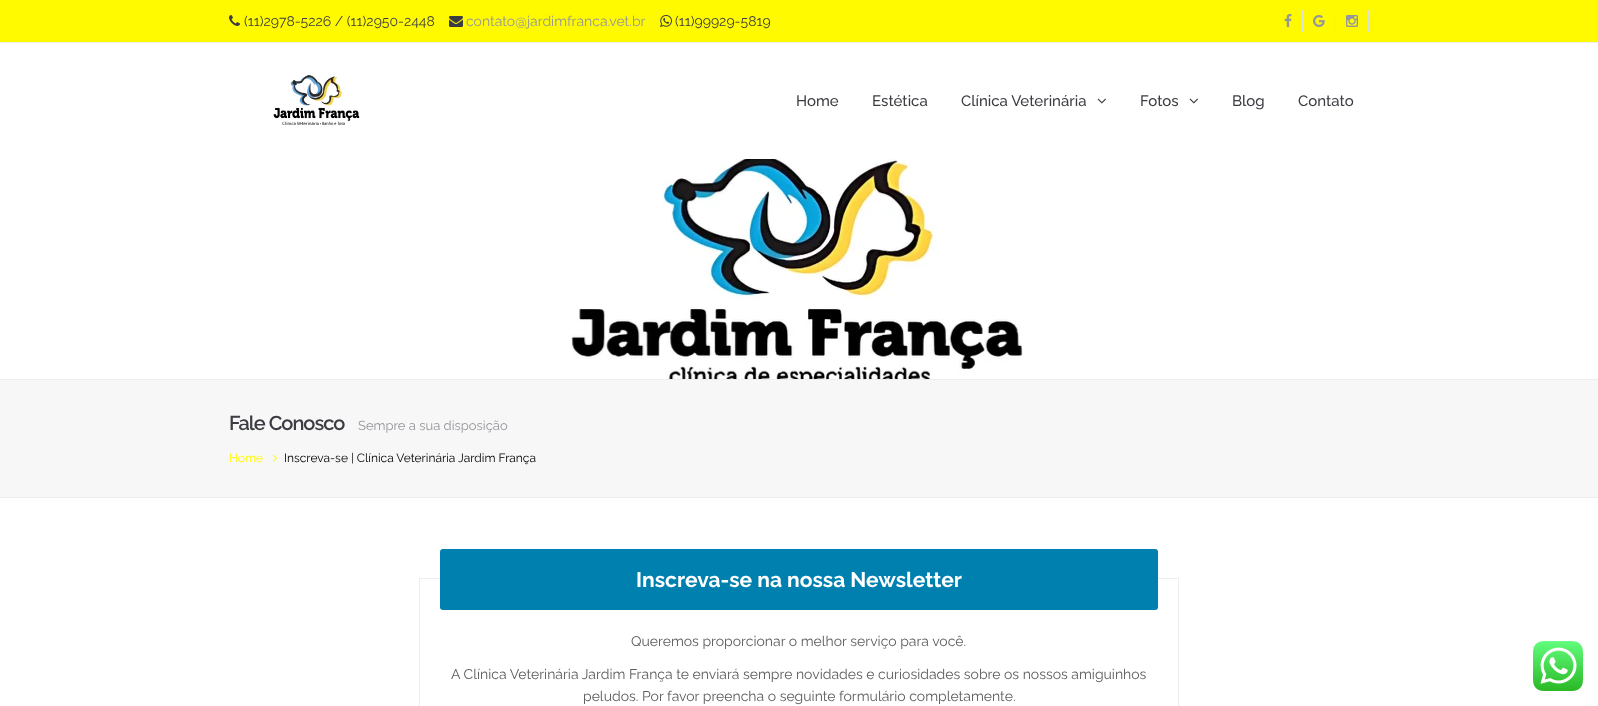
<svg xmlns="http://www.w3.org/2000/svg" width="1598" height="706">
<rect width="100%" height="100%" fill="#fff"/>
<rect width="1598" height="42" fill="#fffa00"/>
<rect y="42" width="1598" height="1" fill="#ededed"/>
<image x="229" y="15" width="11" height="11" href="media/1.png"/>
<text x="244" y="26" style="font-family:Raleway;font-size:14px;fill:#3b3d42">(11)2978-5226 / (11)2950-2448</text>
<image x="449" y="16" width="14" height="11" href="media/2.png"/>
<text x="466" y="26" style="font-family:Raleway;font-size:14px;fill:#94969b">contato@jardimfranca.vet.br</text>
<image x="660" y="15" width="12" height="12" href="media/3.png"/>
<text x="675" y="26" style="font-family:Raleway;font-size:14px;fill:#3b3d42">(11)99929-5819</text>
<rect x="1302" y="10" width="1" height="22" fill="#ddd"/>
<rect x="1273" y="10" width="1" height="22" fill="#ddd"/>
<image x="1284" y="14" width="8" height="13" href="media/4.png"/>
<rect x="1335" y="10" width="1" height="22" fill="#ddd"/>
<image x="1313" y="15" width="12" height="12" href="media/5.png"/>
<rect x="1368" y="10" width="1" height="22" fill="#ddd"/>
<image x="1346" y="15" width="12" height="12" href="media/6.png"/>
<image x="273" y="75" width="87" height="50" href="media/7.png"/>
<text x="796" y="106" style="font-family:Raleway;font-size:15px;font-weight:500;fill:#3b3d42">Home</text>
<text x="872" y="106" style="font-family:Raleway;font-size:15px;font-weight:500;fill:#3b3d42">Estética</text>
<text x="961" y="106" style="font-family:Raleway;font-size:15px;font-weight:500;fill:#3b3d42">Clínica Veterinária</text>
<image x="1097" y="98" width="9" height="6" href="media/8.png"/>
<text x="1140" y="106" style="font-family:Raleway;font-size:15px;font-weight:500;fill:#3b3d42">Fotos</text>
<image x="1189" y="98" width="9" height="6" href="media/8.png"/>
<text x="1232" y="106" style="font-family:Raleway;font-size:15px;font-weight:500;fill:#3b3d42">Blog</text>
<text x="1298" y="106" style="font-family:Raleway;font-size:15px;font-weight:500;fill:#3b3d42">Contato</text>
<image x="571" y="159" width="452" height="220" href="media/9.png"/>
<rect y="380" width="1598" height="117" fill="#f7f7f7"/>
<rect y="379" width="1598" height="1" fill="#ededed"/>
<rect y="497" width="1598" height="1" fill="#ededed"/>
<text x="229" y="430" style="font-family:Raleway;font-size:20px;font-weight:600;letter-spacing:-1px;fill:#3b3d42">Fale Conosco</text>
<text x="358" y="430" style="font-family:Raleway;font-size:13px;fill:#94969b">Sempre a sua disposição</text>
<text x="229" y="462" style="font-family:Raleway;font-size:12px;fill:#fffa00">Home</text>
<image x="273" y="454" width="4" height="8" href="media/10.png"/>
<text x="284" y="462" style="font-family:Raleway;font-size:12px;fill:#000">Inscreva-se | Clínica Veterinária Jardim França</text>
<rect x="419.5" y="578.5" width="759" height="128" fill="none" stroke="#ededed"/>
<rect x="440" y="549" width="718" height="61" rx="3" fill="#0080ae"/>
<text x="636" y="587" style="font-family:Raleway;font-size:21px;font-weight:bold;fill:#fff">Inscreva-se na nossa Newsletter</text>
<text x="631" y="646" style="font-family:Raleway;font-size:14px;fill:#5d5d5d">Queremos proporcionar o melhor serviço para você.</text>
<text x="451" y="679" style="font-family:Raleway;font-size:14px;fill:#5d5d5d">A Clínica Veterinária Jardim França te enviará sempre novidades e curiosidades sobre os nossos amiguinhos</text>
<text x="583" y="701" style="font-family:Raleway;font-size:14px;fill:#5d5d5d">peludos. Por favor preencha o seguinte formulário completamente.</text>
<image x="1533" y="641" width="50" height="50" href="media/11.png"/>
</svg>
